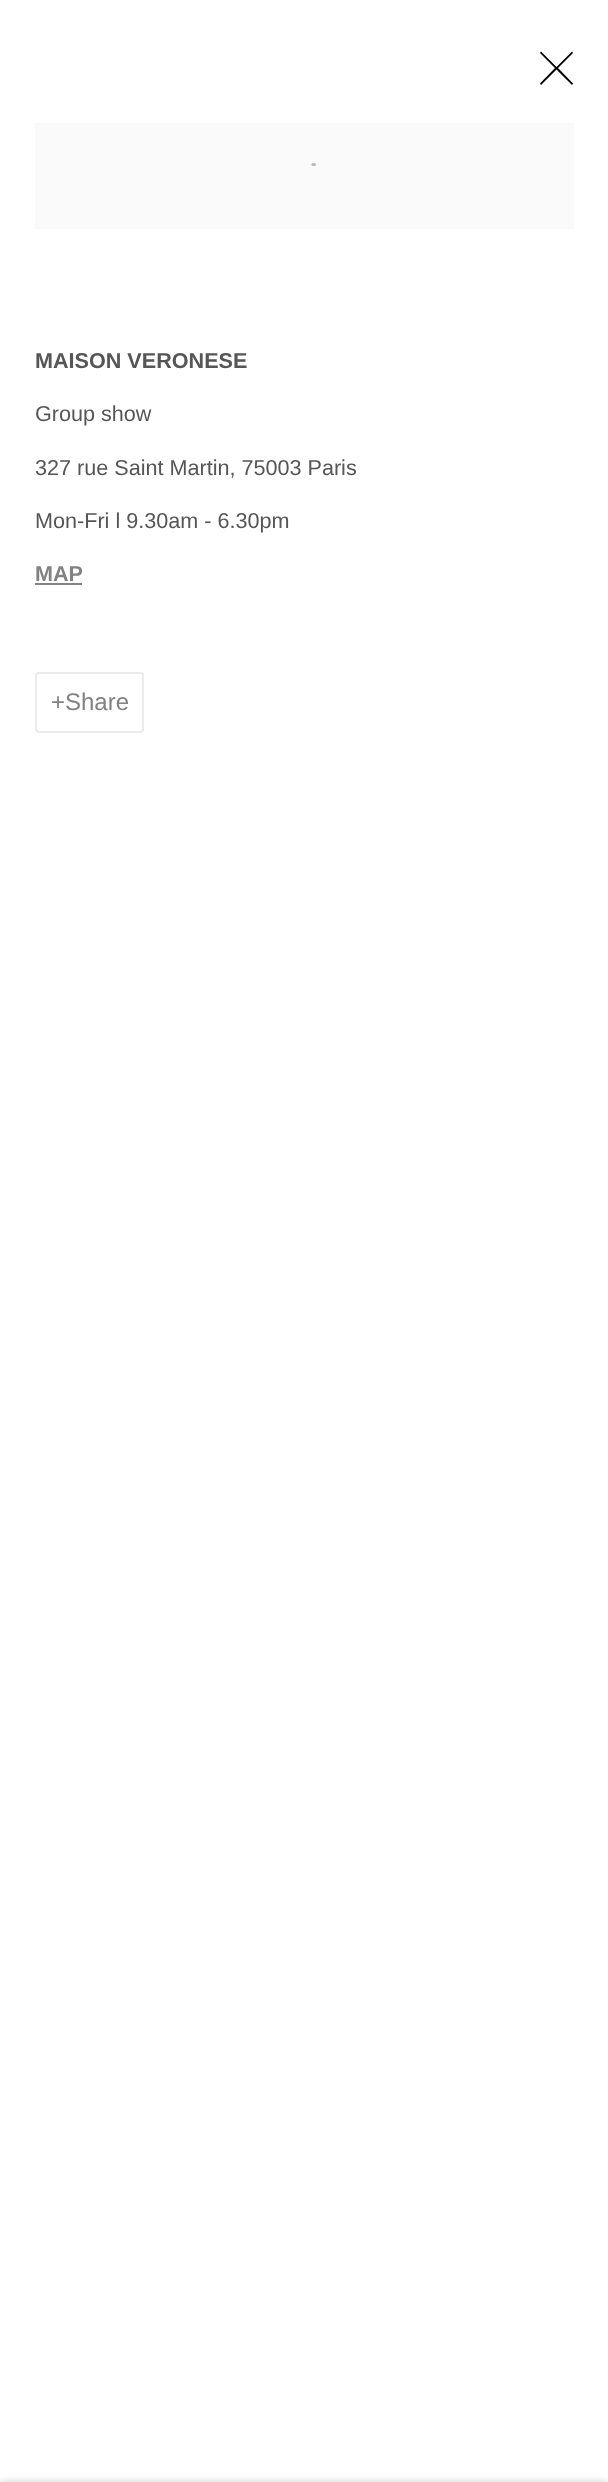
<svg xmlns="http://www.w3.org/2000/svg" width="608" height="2482">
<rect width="100%" height="100%" fill="#fff"/>
<path d="M573 53l-1-1.5l-15.5 15.5l-15.5-15.5l-1 1.5l15 15l-15 15.5l1 1.5l15.5-15.5l15.5 15.5l1-1.5l-15-15.5z" fill="#000"/>
<rect x="35" y="123" width="539" height="106" fill="#fafafa"/>
<path d="M313 164.5h1.5" fill="none" stroke="#bbb" stroke-width="3.2" stroke-linecap="round"/>
<text x="35" y="368" style="font-family:Liberation Sans;font-size:21.6px;font-weight:bold;fill:#565656">MAISON VERONESE</text>
<text x="35" y="421" style="font-family:Liberation Sans;font-size:21.6px;fill:#565656">Group show</text>
<text x="35" y="475" style="font-family:Liberation Sans;font-size:21.6px;fill:#565656">327 rue Saint Martin, 75003 Paris</text>
<text x="35" y="528" style="font-family:Liberation Sans;font-size:21.6px;fill:#565656">Mon-Fri l 9.30am - 6.30pm</text>
<text x="35" y="581" style="font-family:Liberation Sans;font-size:21.6px;font-weight:bold;fill:#828282">MAP</text>
<rect x="35" y="583" width="47" height="2" fill="#828282"/>
<rect x="36" y="673" width="107" height="59" rx="3" fill="none" stroke="#ebebeb" stroke-width="2"/>
<text x="51" y="710" style="font-family:Liberation Sans;font-size:24px;fill:#828282">+Share</text>
<rect y="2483" width="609" height="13" fill="#0000003b" filter="blur(4.5px)"/>
</svg>
